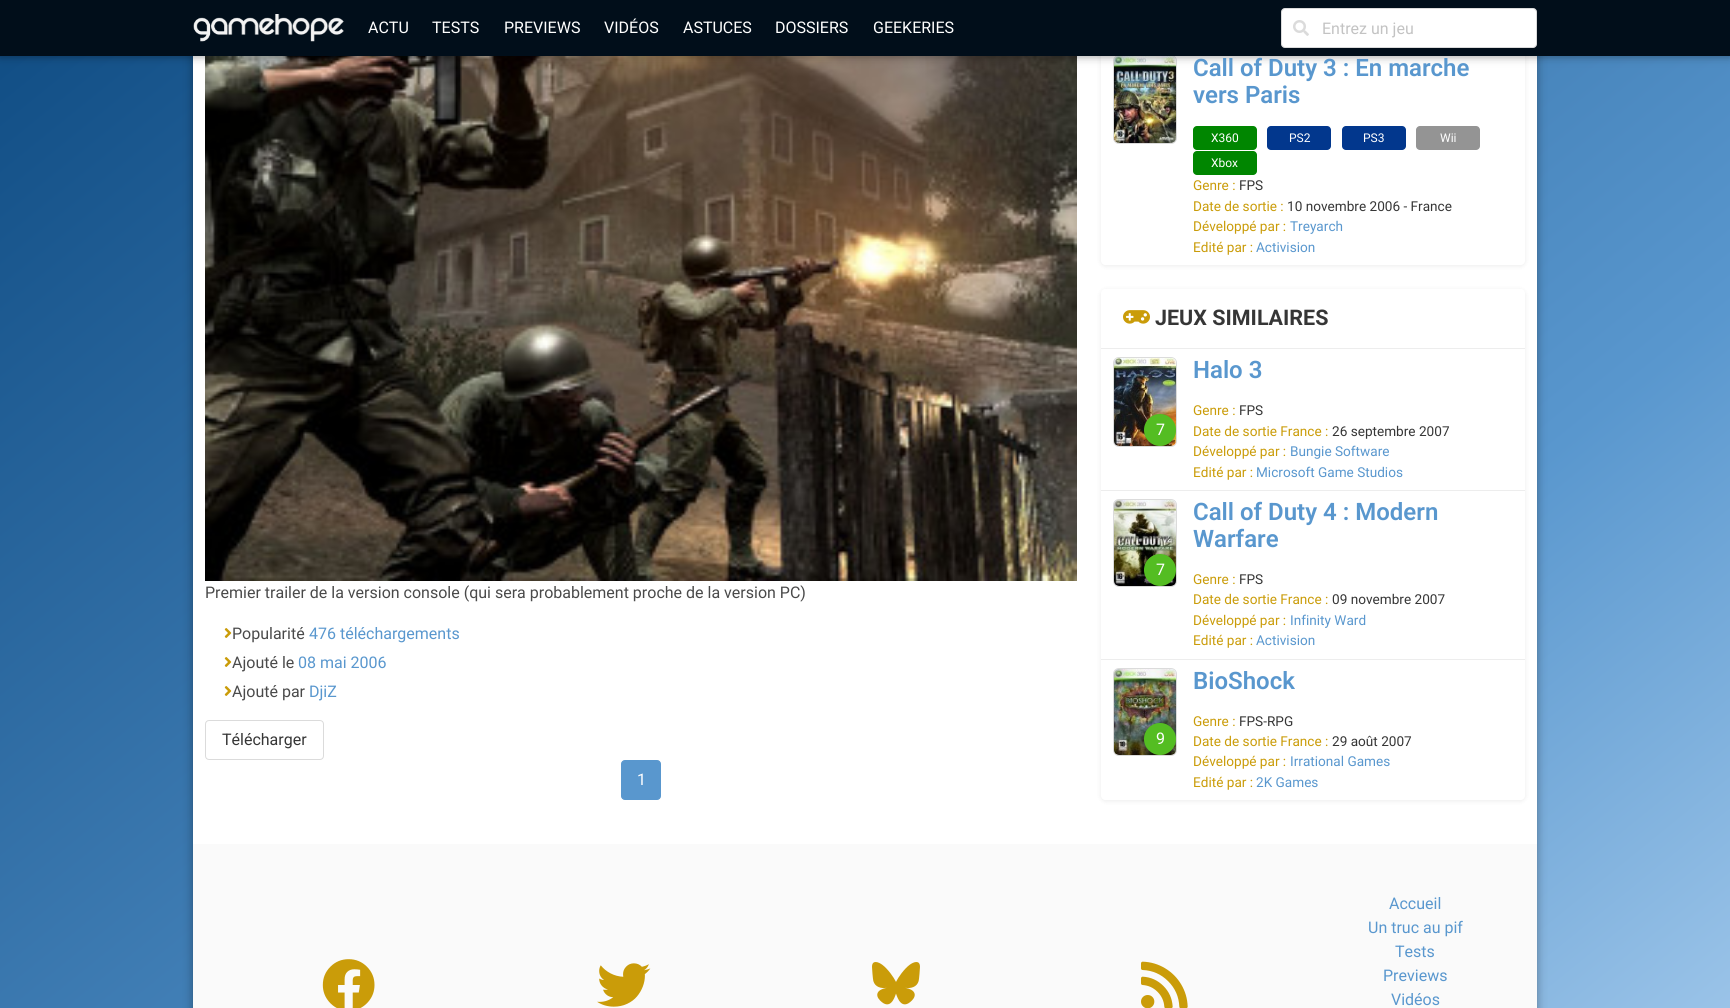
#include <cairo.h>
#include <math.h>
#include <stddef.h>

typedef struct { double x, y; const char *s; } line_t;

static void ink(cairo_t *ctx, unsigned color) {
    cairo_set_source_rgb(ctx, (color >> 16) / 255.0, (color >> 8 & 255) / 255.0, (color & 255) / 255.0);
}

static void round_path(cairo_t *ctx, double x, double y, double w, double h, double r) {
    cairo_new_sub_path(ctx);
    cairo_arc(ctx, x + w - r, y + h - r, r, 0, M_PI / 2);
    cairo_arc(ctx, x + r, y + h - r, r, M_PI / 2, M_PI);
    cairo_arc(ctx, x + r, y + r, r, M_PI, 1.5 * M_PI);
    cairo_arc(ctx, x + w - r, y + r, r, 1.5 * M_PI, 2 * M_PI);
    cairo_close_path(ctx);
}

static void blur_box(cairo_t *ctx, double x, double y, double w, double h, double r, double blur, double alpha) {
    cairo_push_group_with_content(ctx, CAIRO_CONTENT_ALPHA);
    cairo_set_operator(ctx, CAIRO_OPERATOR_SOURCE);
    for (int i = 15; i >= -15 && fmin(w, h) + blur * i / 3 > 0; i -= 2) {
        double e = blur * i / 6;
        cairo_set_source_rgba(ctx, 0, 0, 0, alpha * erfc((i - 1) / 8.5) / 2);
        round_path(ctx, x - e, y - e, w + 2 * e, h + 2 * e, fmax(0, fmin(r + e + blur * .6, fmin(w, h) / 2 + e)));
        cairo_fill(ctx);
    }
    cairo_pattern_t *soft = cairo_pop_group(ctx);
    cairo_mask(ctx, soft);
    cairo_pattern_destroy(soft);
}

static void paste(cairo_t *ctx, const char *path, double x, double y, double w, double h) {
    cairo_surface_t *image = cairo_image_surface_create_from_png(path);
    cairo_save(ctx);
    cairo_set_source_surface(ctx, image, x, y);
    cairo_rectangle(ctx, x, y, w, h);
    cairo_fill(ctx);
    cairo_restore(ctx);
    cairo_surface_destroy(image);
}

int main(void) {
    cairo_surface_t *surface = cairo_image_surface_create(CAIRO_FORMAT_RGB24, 1730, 1008);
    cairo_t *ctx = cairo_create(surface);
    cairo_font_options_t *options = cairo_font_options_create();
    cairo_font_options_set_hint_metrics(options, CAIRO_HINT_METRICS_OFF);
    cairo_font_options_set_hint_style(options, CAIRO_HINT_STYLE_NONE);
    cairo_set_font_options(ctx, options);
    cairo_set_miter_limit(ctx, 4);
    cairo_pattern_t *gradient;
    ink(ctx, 0xFFFFFF);
    cairo_paint(ctx);
    gradient = cairo_pattern_create_linear(276, -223, 1454, 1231);
    cairo_pattern_add_color_stop_rgba(gradient, 0, 0.059, 0.298, 0.514, 1);
    cairo_pattern_add_color_stop_rgba(gradient, 0.71, 0.349, 0.592, 0.808, 1);
    cairo_pattern_add_color_stop_rgba(gradient, 1, 0.604, 0.765, 0.91, 1);
    cairo_set_source(ctx, gradient);
    cairo_pattern_destroy(gradient);
    cairo_rectangle(ctx, 0, 56, 1730, 952);
    cairo_fill(ctx);
    ink(ctx, 0x000000);
    blur_box(ctx, 193, -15, 1344, 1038, 0, 5, 0.35);
    ink(ctx, 0xFFFFFF);
    cairo_rectangle(ctx, 193, 56, 1344, 788);
    cairo_fill(ctx);
    paste(ctx, "media/3.png", 205, 56, 872, 525);
    cairo_save(ctx);
    cairo_set_fill_rule(ctx, CAIRO_FILL_RULE_EVEN_ODD);
    cairo_new_path(ctx);
    cairo_move_to(ctx, 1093, 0);
    cairo_line_to(ctx, 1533, 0);
    cairo_line_to(ctx, 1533, 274);
    cairo_line_to(ctx, 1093, 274);
    cairo_close_path(ctx);
    cairo_move_to(ctx, 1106, -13);
    cairo_line_to(ctx, 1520, -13);
    cairo_curve_to(ctx, 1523, -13, 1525, -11, 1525, -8);
    cairo_line_to(ctx, 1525, 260);
    cairo_curve_to(ctx, 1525, 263, 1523, 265, 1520, 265);
    cairo_line_to(ctx, 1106, 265);
    cairo_curve_to(ctx, 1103, 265, 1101, 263, 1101, 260);
    cairo_line_to(ctx, 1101, -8);
    cairo_curve_to(ctx, 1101, -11, 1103, -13, 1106, -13);
    cairo_close_path(ctx);
    cairo_clip(ctx);
    ink(ctx, 0x000000);
    blur_box(ctx, 1100, -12, 426, 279, 6, 2, 0.06);
    cairo_restore(ctx);
    round_path(ctx, 1113.5, 55.5, 63, 88, 5.5);
    ink(ctx, 0xDBDBDB);
    cairo_set_line_width(ctx, 1);
    cairo_stroke(ctx);
    paste(ctx, "media/5.png", 1114, 56, 62, 87);
    ink(ctx, 0x000000);
    blur_box(ctx, 0, -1, 1730, 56, 0, 5, 0.5);
    ink(ctx, 0x010E1A);
    cairo_rectangle(ctx, 0, 0, 1730, 56);
    cairo_fill(ctx);
    paste(ctx, "media/1.png", 193, 14, 151, 28);
    cairo_select_font_face(ctx, "Roboto", CAIRO_FONT_SLANT_NORMAL, CAIRO_FONT_WEIGHT_NORMAL);
    cairo_set_font_size(ctx, 16);
    ink(ctx, 0xFFFFFF);
    {
        static const line_t items[] = {
            {368, 33, "ACTU"},
            {432, 33, "TESTS"},
            {504, 33, "PREVIEWS"},
            {604, 33, "VIDÉOS"},
            {683, 33, "ASTUCES"},
            {775, 33, "DOSSIERS"},
            {873, 33, "GEEKERIES"},
        };
        for (size_t i = 0; i < sizeof items / sizeof *items; i++) {
            cairo_move_to(ctx, items[i].x, items[i].y);
            cairo_show_text(ctx, items[i].s);
        }
    }
    round_path(ctx, 1281.5, 8.5, 255, 39, 3.5);
    cairo_fill_preserve(ctx);
    ink(ctx, 0xDBDBDB);
    cairo_stroke(ctx);
    paste(ctx, "media/2.png", 1293, 20, 16, 16);
    ink(ctx, 0xC3C3C3);
    cairo_move_to(ctx, 1322, 34);
    cairo_show_text(ctx, "Entrez un jeu");
    ink(ctx, 0x4A4A4A);
    cairo_move_to(ctx, 205, 598);
    cairo_show_text(ctx, "Premier trailer de la version console (qui sera probablement proche de la version PC)");
    paste(ctx, "media/4.png", 224, 628, 8, 10);
    cairo_move_to(ctx, 232, 639);
    cairo_show_text(ctx, "Popularité");
    ink(ctx, 0x5997CE);
    cairo_move_to(ctx, 309, 639);
    cairo_show_text(ctx, "476 téléchargements");
    paste(ctx, "media/4.png", 224, 657, 8, 10);
    ink(ctx, 0x4A4A4A);
    cairo_move_to(ctx, 232, 668);
    cairo_show_text(ctx, "Ajouté le");
    ink(ctx, 0x5997CE);
    cairo_move_to(ctx, 298, 668);
    cairo_show_text(ctx, "08 mai 2006");
    paste(ctx, "media/4.png", 224, 686, 8, 10);
    ink(ctx, 0x4A4A4A);
    cairo_move_to(ctx, 232, 697);
    cairo_show_text(ctx, "Ajouté par");
    ink(ctx, 0x5997CE);
    cairo_move_to(ctx, 309, 697);
    cairo_show_text(ctx, "DjiZ");
    round_path(ctx, 205.5, 720.5, 118, 39, 3.5);
    ink(ctx, 0xDBDBDB);
    cairo_stroke(ctx);
    ink(ctx, 0x363636);
    cairo_move_to(ctx, 222, 745);
    cairo_show_text(ctx, "Télécharger");
    ink(ctx, 0x5997CE);
    round_path(ctx, 621.5, 760.5, 39, 39, 3.5);
    cairo_fill_preserve(ctx);
    cairo_stroke(ctx);
    ink(ctx, 0xFFFFFF);
    cairo_move_to(ctx, 637, 785);
    cairo_show_text(ctx, "1");
    cairo_select_font_face(ctx, "Roboto SemiBold", CAIRO_FONT_SLANT_NORMAL, CAIRO_FONT_WEIGHT_NORMAL);
    cairo_set_font_size(ctx, 24);
    ink(ctx, 0x5997CE);
    cairo_move_to(ctx, 1193, 76);
    cairo_show_text(ctx, "Call of Duty 3 : En marche");
    cairo_move_to(ctx, 1193, 103);
    cairo_show_text(ctx, "vers Paris");
    ink(ctx, 0x008600);
    round_path(ctx, 1193, 126, 64, 24, 4);
    cairo_fill(ctx);
    cairo_select_font_face(ctx, "Roboto", CAIRO_FONT_SLANT_NORMAL, CAIRO_FONT_WEIGHT_NORMAL);
    cairo_set_font_size(ctx, 12);
    ink(ctx, 0xFFFFFF);
    cairo_move_to(ctx, 1211, 142);
    cairo_show_text(ctx, "X360");
    ink(ctx, 0x02378D);
    round_path(ctx, 1267, 126, 64, 24, 4);
    cairo_fill(ctx);
    ink(ctx, 0xFFFFFF);
    cairo_move_to(ctx, 1289, 142);
    cairo_show_text(ctx, "PS2");
    ink(ctx, 0x02378D);
    round_path(ctx, 1342, 126, 64, 24, 4);
    cairo_fill(ctx);
    ink(ctx, 0xFFFFFF);
    cairo_move_to(ctx, 1363, 142);
    cairo_show_text(ctx, "PS3");
    ink(ctx, 0x949494);
    round_path(ctx, 1416, 126, 64, 24, 4);
    cairo_fill(ctx);
    ink(ctx, 0xFFFFFF);
    cairo_move_to(ctx, 1440, 142);
    cairo_show_text(ctx, "Wii");
    ink(ctx, 0x008600);
    round_path(ctx, 1193, 151, 64, 24, 4);
    cairo_fill(ctx);
    ink(ctx, 0xFFFFFF);
    cairo_move_to(ctx, 1211, 167);
    cairo_show_text(ctx, "Xbox");
    cairo_set_font_size(ctx, 13.6);
    ink(ctx, 0xCA9C09);
    cairo_move_to(ctx, 1193, 190);
    cairo_show_text(ctx, "Genre :");
    ink(ctx, 0x363636);
    cairo_move_to(ctx, 1239, 190);
    cairo_show_text(ctx, "FPS");
    ink(ctx, 0xCA9C09);
    cairo_move_to(ctx, 1193, 211);
    cairo_show_text(ctx, "Date de sortie :");
    ink(ctx, 0x363636);
    cairo_move_to(ctx, 1287, 211);
    cairo_show_text(ctx, "10 novembre 2006 - France");
    ink(ctx, 0xCA9C09);
    cairo_move_to(ctx, 1193, 231);
    cairo_show_text(ctx, "Développé par :");
    ink(ctx, 0x5997CE);
    cairo_move_to(ctx, 1290, 231);
    cairo_show_text(ctx, "Treyarch");
    ink(ctx, 0xCA9C09);
    cairo_move_to(ctx, 1193, 252);
    cairo_show_text(ctx, "Edité par :");
    ink(ctx, 0x5997CE);
    cairo_move_to(ctx, 1256, 252);
    cairo_show_text(ctx, "Activision");
    cairo_save(ctx);
    cairo_set_fill_rule(ctx, CAIRO_FILL_RULE_EVEN_ODD);
    cairo_new_path(ctx);
    cairo_move_to(ctx, 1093, 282);
    cairo_line_to(ctx, 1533, 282);
    cairo_line_to(ctx, 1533, 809);
    cairo_line_to(ctx, 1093, 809);
    cairo_close_path(ctx);
    cairo_move_to(ctx, 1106, 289);
    cairo_line_to(ctx, 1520, 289);
    cairo_curve_to(ctx, 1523, 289, 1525, 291, 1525, 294);
    cairo_line_to(ctx, 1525, 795);
    cairo_curve_to(ctx, 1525, 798, 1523, 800, 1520, 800);
    cairo_line_to(ctx, 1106, 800);
    cairo_curve_to(ctx, 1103, 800, 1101, 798, 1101, 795);
    cairo_line_to(ctx, 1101, 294);
    cairo_curve_to(ctx, 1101, 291, 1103, 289, 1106, 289);
    cairo_close_path(ctx);
    cairo_clip(ctx);
    ink(ctx, 0x000000);
    blur_box(ctx, 1100, 289, 426, 513, 6, 2, 0.06);
    cairo_restore(ctx);
    ink(ctx, 0xEDEDED);
    cairo_rectangle(ctx, 1101, 348, 424, 1);
    cairo_fill(ctx);
    paste(ctx, "media/6.png", 1123, 310, 27, 14);
    cairo_select_font_face(ctx, "Roboto", CAIRO_FONT_SLANT_NORMAL, CAIRO_FONT_WEIGHT_BOLD);
    cairo_set_font_size(ctx, 21.5);
    ink(ctx, 0x363636);
    cairo_move_to(ctx, 1155, 325);
    cairo_show_text(ctx, "JEUX SIMILAIRES");
    ink(ctx, 0xEDEDED);
    cairo_rectangle(ctx, 1101, 490, 424, 1);
    cairo_fill(ctx);
    round_path(ctx, 1113.5, 357.5, 63, 89, 5.5);
    ink(ctx, 0xDBDBDB);
    cairo_stroke(ctx);
    paste(ctx, "media/7.png", 1114, 358, 62, 88);
    cairo_save(ctx);
    round_path(ctx, 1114, 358, 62, 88, 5);
    cairo_clip(ctx);
    ink(ctx, 0x000000);
    blur_box(ctx, 1144, 414, 32, 32, 16, 3.5, 0.4);
    cairo_restore(ctx);
    ink(ctx, 0x54BD22);
    cairo_arc(ctx, 1160, 430, 16, 0, 2 * M_PI);
    cairo_fill(ctx);
    cairo_select_font_face(ctx, "Roboto", CAIRO_FONT_SLANT_NORMAL, CAIRO_FONT_WEIGHT_NORMAL);
    cairo_set_font_size(ctx, 16);
    ink(ctx, 0xFFFFFF);
    cairo_move_to(ctx, 1156, 435);
    cairo_show_text(ctx, "7");
    cairo_select_font_face(ctx, "Roboto SemiBold", CAIRO_FONT_SLANT_NORMAL, CAIRO_FONT_WEIGHT_NORMAL);
    cairo_set_font_size(ctx, 24);
    ink(ctx, 0x5997CE);
    cairo_move_to(ctx, 1193, 378);
    cairo_show_text(ctx, "Halo 3");
    cairo_select_font_face(ctx, "Roboto", CAIRO_FONT_SLANT_NORMAL, CAIRO_FONT_WEIGHT_NORMAL);
    cairo_set_font_size(ctx, 13.6);
    ink(ctx, 0xCA9C09);
    cairo_move_to(ctx, 1193, 415);
    cairo_show_text(ctx, "Genre :");
    ink(ctx, 0x363636);
    cairo_move_to(ctx, 1239, 415);
    cairo_show_text(ctx, "FPS");
    ink(ctx, 0xCA9C09);
    cairo_move_to(ctx, 1193, 436);
    cairo_show_text(ctx, "Date de sortie France :");
    ink(ctx, 0x363636);
    cairo_move_to(ctx, 1332, 436);
    cairo_show_text(ctx, "26 septembre 2007");
    ink(ctx, 0xCA9C09);
    cairo_move_to(ctx, 1193, 456);
    cairo_show_text(ctx, "Développé par :");
    ink(ctx, 0x5997CE);
    cairo_move_to(ctx, 1290, 456);
    cairo_show_text(ctx, "Bungie Software");
    ink(ctx, 0xCA9C09);
    cairo_move_to(ctx, 1193, 477);
    cairo_show_text(ctx, "Edité par :");
    ink(ctx, 0x5997CE);
    cairo_move_to(ctx, 1256, 477);
    cairo_show_text(ctx, "Microsoft Game Studios");
    ink(ctx, 0xEDEDED);
    cairo_rectangle(ctx, 1101, 659, 424, 1);
    cairo_fill(ctx);
    round_path(ctx, 1113.5, 499.5, 63, 87, 5.5);
    ink(ctx, 0xDBDBDB);
    cairo_stroke(ctx);
    paste(ctx, "media/8.png", 1114, 500, 62, 86);
    cairo_save(ctx);
    round_path(ctx, 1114, 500, 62, 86, 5);
    cairo_clip(ctx);
    ink(ctx, 0x000000);
    blur_box(ctx, 1144, 554, 32, 32, 16, 3.5, 0.4);
    cairo_restore(ctx);
    ink(ctx, 0x54BD22);
    cairo_arc(ctx, 1160, 570, 16, 0, 2 * M_PI);
    cairo_fill(ctx);
    cairo_set_font_size(ctx, 16);
    ink(ctx, 0xFFFFFF);
    cairo_move_to(ctx, 1156, 575);
    cairo_show_text(ctx, "7");
    cairo_select_font_face(ctx, "Roboto SemiBold", CAIRO_FONT_SLANT_NORMAL, CAIRO_FONT_WEIGHT_NORMAL);
    cairo_set_font_size(ctx, 24);
    ink(ctx, 0x5997CE);
    cairo_move_to(ctx, 1193, 520);
    cairo_show_text(ctx, "Call of Duty 4 : Modern");
    cairo_move_to(ctx, 1193, 547);
    cairo_show_text(ctx, "Warfare");
    cairo_select_font_face(ctx, "Roboto", CAIRO_FONT_SLANT_NORMAL, CAIRO_FONT_WEIGHT_NORMAL);
    cairo_set_font_size(ctx, 13.6);
    ink(ctx, 0xCA9C09);
    cairo_move_to(ctx, 1193, 584);
    cairo_show_text(ctx, "Genre :");
    ink(ctx, 0x363636);
    cairo_move_to(ctx, 1239, 584);
    cairo_show_text(ctx, "FPS");
    ink(ctx, 0xCA9C09);
    cairo_move_to(ctx, 1193, 604);
    cairo_show_text(ctx, "Date de sortie France :");
    ink(ctx, 0x363636);
    cairo_move_to(ctx, 1332, 604);
    cairo_show_text(ctx, "09 novembre 2007");
    ink(ctx, 0xCA9C09);
    cairo_move_to(ctx, 1193, 625);
    cairo_show_text(ctx, "Développé par :");
    ink(ctx, 0x5997CE);
    cairo_move_to(ctx, 1290, 625);
    cairo_show_text(ctx, "Infinity Ward");
    ink(ctx, 0xCA9C09);
    cairo_move_to(ctx, 1193, 645);
    cairo_show_text(ctx, "Edité par :");
    ink(ctx, 0x5997CE);
    cairo_move_to(ctx, 1256, 645);
    cairo_show_text(ctx, "Activision");
    round_path(ctx, 1113.5, 668.5, 63, 87, 5.5);
    ink(ctx, 0xDBDBDB);
    cairo_stroke(ctx);
    paste(ctx, "media/9.png", 1114, 669, 62, 86);
    cairo_save(ctx);
    round_path(ctx, 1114, 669, 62, 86, 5);
    cairo_clip(ctx);
    ink(ctx, 0x000000);
    blur_box(ctx, 1144, 723, 32, 32, 16, 3.5, 0.4);
    cairo_restore(ctx);
    ink(ctx, 0x54BD22);
    cairo_arc(ctx, 1160, 739, 16, 0, 2 * M_PI);
    cairo_fill(ctx);
    cairo_set_font_size(ctx, 16);
    ink(ctx, 0xFFFFFF);
    cairo_move_to(ctx, 1156, 744);
    cairo_show_text(ctx, "9");
    cairo_select_font_face(ctx, "Roboto SemiBold", CAIRO_FONT_SLANT_NORMAL, CAIRO_FONT_WEIGHT_NORMAL);
    cairo_set_font_size(ctx, 24);
    ink(ctx, 0x5997CE);
    cairo_move_to(ctx, 1193, 689);
    cairo_show_text(ctx, "BioShock");
    cairo_select_font_face(ctx, "Roboto", CAIRO_FONT_SLANT_NORMAL, CAIRO_FONT_WEIGHT_NORMAL);
    cairo_set_font_size(ctx, 13.6);
    ink(ctx, 0xCA9C09);
    cairo_move_to(ctx, 1193, 726);
    cairo_show_text(ctx, "Genre :");
    ink(ctx, 0x363636);
    cairo_move_to(ctx, 1239, 726);
    cairo_show_text(ctx, "FPS-RPG");
    ink(ctx, 0xCA9C09);
    cairo_move_to(ctx, 1193, 746);
    cairo_show_text(ctx, "Date de sortie France :");
    ink(ctx, 0x363636);
    cairo_move_to(ctx, 1332, 746);
    cairo_show_text(ctx, "29 août 2007");
    ink(ctx, 0xCA9C09);
    cairo_move_to(ctx, 1193, 766);
    cairo_show_text(ctx, "Développé par :");
    ink(ctx, 0x5997CE);
    cairo_move_to(ctx, 1290, 766);
    cairo_show_text(ctx, "Irrational Games");
    ink(ctx, 0xCA9C09);
    cairo_move_to(ctx, 1193, 787);
    cairo_show_text(ctx, "Edité par :");
    ink(ctx, 0x5997CE);
    cairo_move_to(ctx, 1256, 787);
    cairo_show_text(ctx, "2K Games");
    ink(ctx, 0xFAFAFA);
    cairo_rectangle(ctx, 193, 844, 1344, 164);
    cairo_fill(ctx);
    paste(ctx, "media/10.png", 322, 959, 53, 49);
    paste(ctx, "media/11.png", 597, 963, 54, 44);
    paste(ctx, "media/12.png", 872, 962, 48, 43);
    paste(ctx, "media/13.png", 1141, 961, 47, 47);
    cairo_set_font_size(ctx, 16);
    ink(ctx, 0x5997CE);
    {
        static const line_t items[] = {
            {1389, 909, "Accueil"},
            {1368, 933, "Un truc au pif"},
            {1395, 957, "Tests"},
            {1383, 981, "Previews"},
            {1391, 1005, "Vidéos"},
        };
        for (size_t i = 0; i < sizeof items / sizeof *items; i++) {
            cairo_move_to(ctx, items[i].x, items[i].y);
            cairo_show_text(ctx, items[i].s);
        }
    }
    cairo_surface_write_to_png(surface, "image.png");
    cairo_font_options_destroy(options);
    cairo_destroy(ctx);
    cairo_surface_destroy(surface);
    return 0;
}
